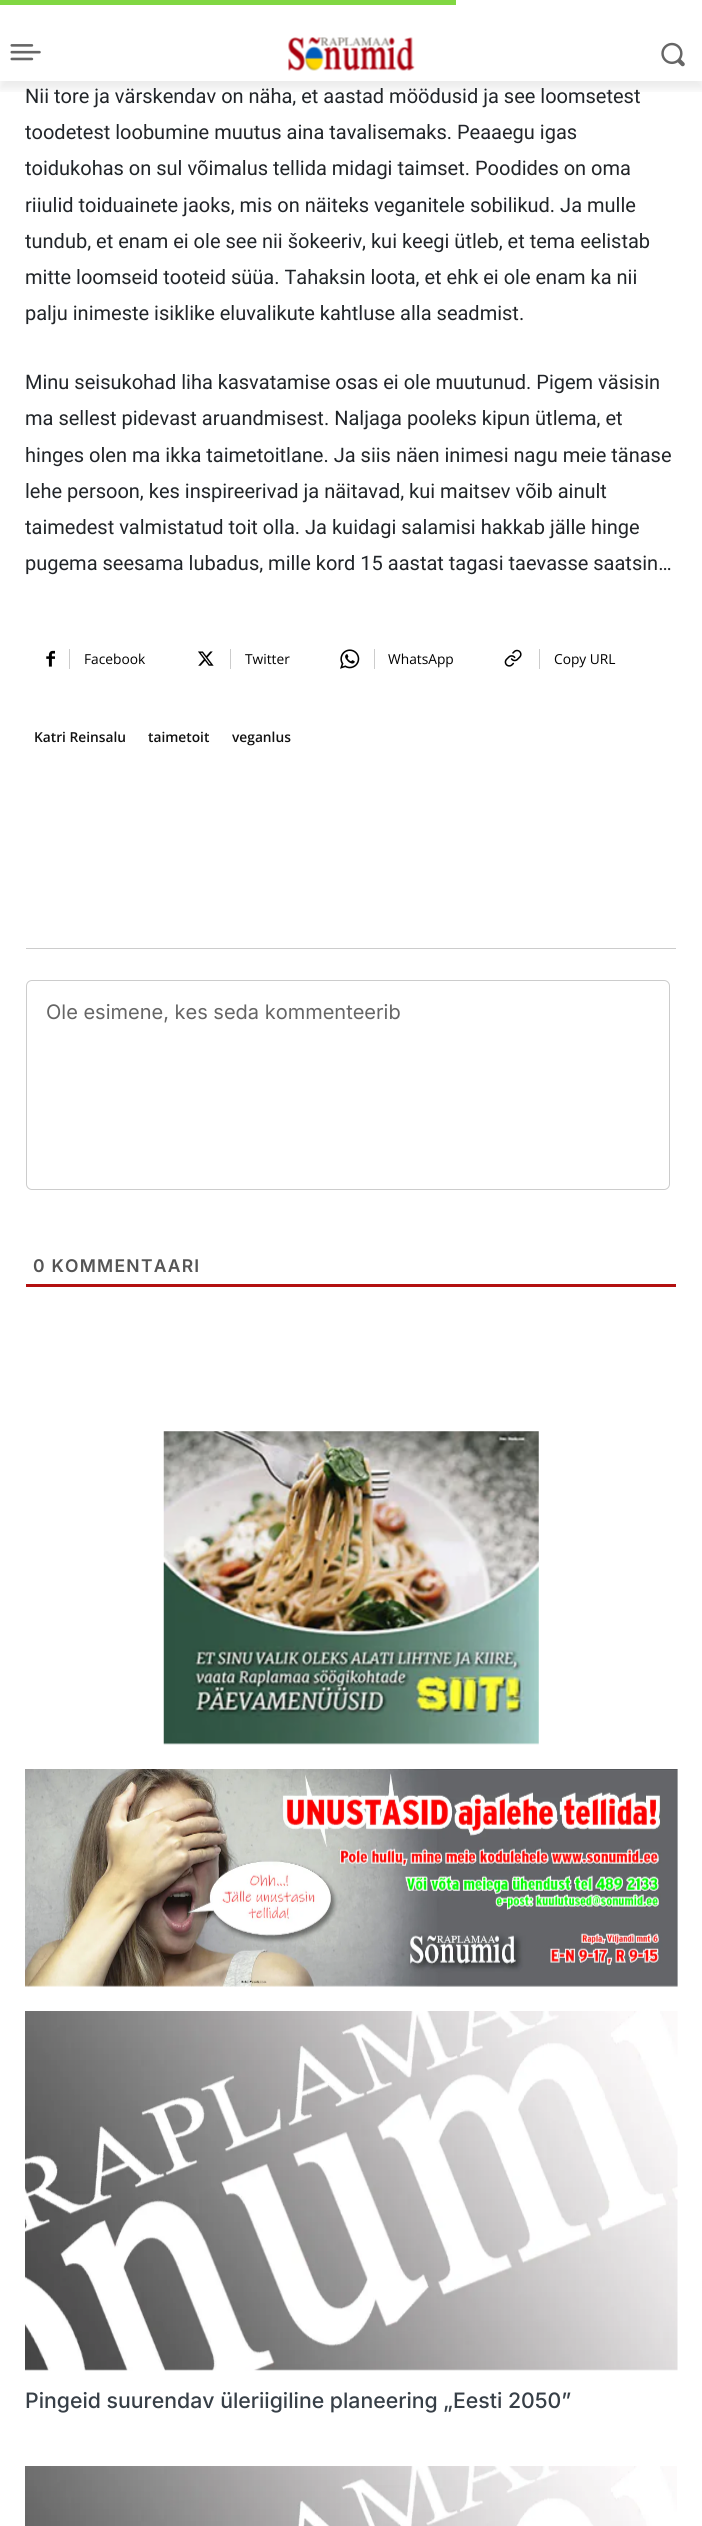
#include <cairo.h>
#include <math.h>
#include <stddef.h>

typedef struct { double x, y; const char *s; } line_t;

static void ink(cairo_t *ctx, unsigned color) {
    cairo_set_source_rgb(ctx, (color >> 16) / 255.0, (color >> 8 & 255) / 255.0, (color & 255) / 255.0);
}

static void write_spaced(cairo_t *ctx, double x, double y, const char *s, double letter, double word) {
    cairo_move_to(ctx, x, y);
    while (*s) {
        char ch[5] = {0};
        int n = 0;
        do ch[n++] = *s++; while ((*s & 0xC0) == 0x80);
        cairo_show_text(ctx, ch);
        cairo_rel_move_to(ctx, letter + word * (*ch == ' '), 0);
    }
}

static void round_path(cairo_t *ctx, double x, double y, double w, double h, double r) {
    cairo_new_sub_path(ctx);
    cairo_arc(ctx, x + w - r, y + h - r, r, 0, M_PI / 2);
    cairo_arc(ctx, x + r, y + h - r, r, M_PI / 2, M_PI);
    cairo_arc(ctx, x + r, y + r, r, M_PI, 1.5 * M_PI);
    cairo_arc(ctx, x + w - r, y + r, r, 1.5 * M_PI, 2 * M_PI);
    cairo_close_path(ctx);
}

static void blur_box(cairo_t *ctx, double x, double y, double w, double h, double r, double blur, double alpha) {
    cairo_push_group_with_content(ctx, CAIRO_CONTENT_ALPHA);
    cairo_set_operator(ctx, CAIRO_OPERATOR_SOURCE);
    for (int i = 15; i >= -15 && fmin(w, h) + blur * i / 3 > 0; i -= 2) {
        double e = blur * i / 6;
        cairo_set_source_rgba(ctx, 0, 0, 0, alpha * erfc((i - 1) / 8.5) / 2);
        round_path(ctx, x - e, y - e, w + 2 * e, h + 2 * e, fmax(0, fmin(r + e + blur * .6, fmin(w, h) / 2 + e)));
        cairo_fill(ctx);
    }
    cairo_pattern_t *soft = cairo_pop_group(ctx);
    cairo_mask(ctx, soft);
    cairo_pattern_destroy(soft);
}

static void paste(cairo_t *ctx, const char *path, double x, double y, double w, double h) {
    cairo_surface_t *image = cairo_image_surface_create_from_png(path);
    cairo_save(ctx);
    cairo_set_source_surface(ctx, image, x, y);
    cairo_rectangle(ctx, x, y, w, h);
    cairo_fill(ctx);
    cairo_restore(ctx);
    cairo_surface_destroy(image);
}

int main(void) {
    cairo_surface_t *surface = cairo_image_surface_create(CAIRO_FORMAT_RGB24, 702, 2526);
    cairo_t *ctx = cairo_create(surface);
    cairo_font_options_t *options = cairo_font_options_create();
    cairo_font_options_set_hint_metrics(options, CAIRO_HINT_METRICS_OFF);
    cairo_font_options_set_hint_style(options, CAIRO_HINT_STYLE_NONE);
    cairo_set_font_options(ctx, options);
    cairo_set_miter_limit(ctx, 4);
    ink(ctx, 0xFFFFFF);
    cairo_paint(ctx);
    paste(ctx, "media/1.png", 10, 44, 31, 17);
    paste(ctx, "media/2.png", 288, 37, 127, 34);
    paste(ctx, "media/3.png", 661, 42, 24, 25);
    cairo_save(ctx);
    cairo_rectangle(ctx, 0, 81, 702, 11);
    cairo_clip(ctx);
    ink(ctx, 0x000000);
    blur_box(ctx, 0, 8, 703, 81, 0, 5, 0.08);
    cairo_restore(ctx);
    ink(ctx, 0x81D742);
    cairo_rectangle(ctx, 0, 0, 456, 5);
    cairo_fill(ctx);
    cairo_select_font_face(ctx, "Roboto", CAIRO_FONT_SLANT_NORMAL, CAIRO_FONT_WEIGHT_NORMAL);
    cairo_set_font_size(ctx, 20);
    ink(ctx, 0x212529);
    {
        static const line_t items[] = {
            {25, 103, "Nii tore ja värskendav on näha, et aastad möödusid ja see loomsetest"},
            {25, 139, "toodetest loobumine muutus aina tavalisemaks. Peaaegu igas"},
            {25, 175, "toidukohas on sul võimalus tellida midagi taimset. Poodides on oma"},
            {25, 212, "riiulid toiduainete jaoks, mis on näiteks veganitele sobilikud. Ja mulle"},
            {25, 248, "tundub, et enam ei ole see nii šokeeriv, kui keegi ütleb, et tema eelistab"},
            {25, 284, "mitte loomseid tooteid süüa. Tahaksin loota, et ehk ei ole enam ka nii"},
            {25, 320, "palju inimeste isiklike eluvalikute kahtluse alla seadmist."},
            {25, 389, "Minu seisukohad liha kasvatamise osas ei ole muutunud. Pigem väsisin"},
            {25, 425, "ma sellest pidevast aruandmisest. Naljaga pooleks kipun ütlema, et"},
            {25, 462, "hinges olen ma ikka taimetoitlane. Ja siis näen inimesi nagu meie tänase"},
            {25, 498, "lehe persoon, kes inspireerivad ja näitavad, kui maitsev võib ainult"},
            {25, 534, "taimedest valmistatud toit olla. Ja kuidagi salamisi hakkab jälle hinge"},
            {25, 570, "pugema seesama lubadus, mille kord 15 aastat tagasi taevasse saatsin…"},
        };
        for (size_t i = 0; i < sizeof items / sizeof *items; i++) {
            cairo_move_to(ctx, items[i].x, items[i].y);
            cairo_show_text(ctx, items[i].s);
        }
    }
    paste(ctx, "media/4.png", 46, 650, 9, 17);
    ink(ctx, 0xCCCCCC);
    cairo_rectangle(ctx, 69, 649, 1, 20);
    cairo_fill(ctx);
    cairo_select_font_face(ctx, "Open Sans", CAIRO_FONT_SLANT_NORMAL, CAIRO_FONT_WEIGHT_NORMAL);
    cairo_set_font_size(ctx, 13.75);
    ink(ctx, 0x000000);
    cairo_move_to(ctx, 84, 664);
    cairo_show_text(ctx, "Facebook");
    paste(ctx, "media/5.png", 198, 651, 16, 15);
    ink(ctx, 0xCCCCCC);
    cairo_rectangle(ctx, 230, 649, 1, 20);
    cairo_fill(ctx);
    ink(ctx, 0x000000);
    cairo_move_to(ctx, 245, 664);
    cairo_show_text(ctx, "Twitter");
    paste(ctx, "media/6.png", 340, 649, 20, 20);
    ink(ctx, 0xCCCCCC);
    cairo_rectangle(ctx, 374, 649, 1, 20);
    cairo_fill(ctx);
    ink(ctx, 0x000000);
    cairo_move_to(ctx, 388, 664);
    cairo_show_text(ctx, "WhatsApp");
    paste(ctx, "media/7.png", 504, 649, 18, 18);
    ink(ctx, 0xCCCCCC);
    cairo_rectangle(ctx, 539, 649, 1, 20);
    cairo_fill(ctx);
    ink(ctx, 0x000000);
    cairo_move_to(ctx, 554, 664);
    cairo_show_text(ctx, "Copy URL");
    cairo_select_font_face(ctx, "Open Sans SemiBold", CAIRO_FONT_SLANT_NORMAL, CAIRO_FONT_WEIGHT_NORMAL);
    ink(ctx, 0x111111);
    {
        static const line_t items[] = {
            {34, 742, "Katri Reinsalu"},
            {148, 742, "taimetoit"},
            {232, 742, "veganlus"},
        };
        for (size_t i = 0; i < sizeof items / sizeof *items; i++) {
            cairo_move_to(ctx, items[i].x, items[i].y);
            cairo_show_text(ctx, items[i].s);
        }
    }
    ink(ctx, 0xCCCCCC);
    cairo_rectangle(ctx, 26, 948, 650, 1);
    cairo_fill(ctx);
    round_path(ctx, 26.5, 980.5, 643, 209, 5.5);
    cairo_set_line_width(ctx, 1);
    cairo_stroke(ctx);
    cairo_select_font_face(ctx, "Inter", CAIRO_FONT_SLANT_NORMAL, CAIRO_FONT_WEIGHT_NORMAL);
    cairo_set_font_size(ctx, 20);
    ink(ctx, 0x666666);
    cairo_move_to(ctx, 46, 1019);
    cairo_show_text(ctx, "Ole esimene, kes seda kommenteerib");
    ink(ctx, 0xB31010);
    cairo_rectangle(ctx, 26, 1284, 650, 3);
    cairo_fill(ctx);
    cairo_select_font_face(ctx, "Inter SemiBold", CAIRO_FONT_SLANT_NORMAL, CAIRO_FONT_WEIGHT_NORMAL);
    cairo_set_font_size(ctx, 17.5);
    ink(ctx, 0x555555);
    write_spaced(ctx, 33, 1272, "0 KOMMENTAARI", 1.25, 0);
    paste(ctx, "media/8.png", 163, 1431, 376, 314);
    paste(ctx, "media/9.png", 25, 1769, 653, 218);
    paste(ctx, "media/10.png", 25, 2011, 653, 360);
    cairo_select_font_face(ctx, "Inter Medium", CAIRO_FONT_SLANT_NORMAL, CAIRO_FONT_WEIGHT_NORMAL);
    cairo_set_font_size(ctx, 21.25);
    ink(ctx, 0x373F47);
    cairo_move_to(ctx, 25, 2408);
    cairo_show_text(ctx, "Pingeid suurendav üleriigiline planeering „Eesti 2050”");
    paste(ctx, "media/11.png", 25, 2466, 652, 60);
    cairo_surface_write_to_png(surface, "image.png");
    cairo_font_options_destroy(options);
    cairo_destroy(ctx);
    cairo_surface_destroy(surface);
    return 0;
}
